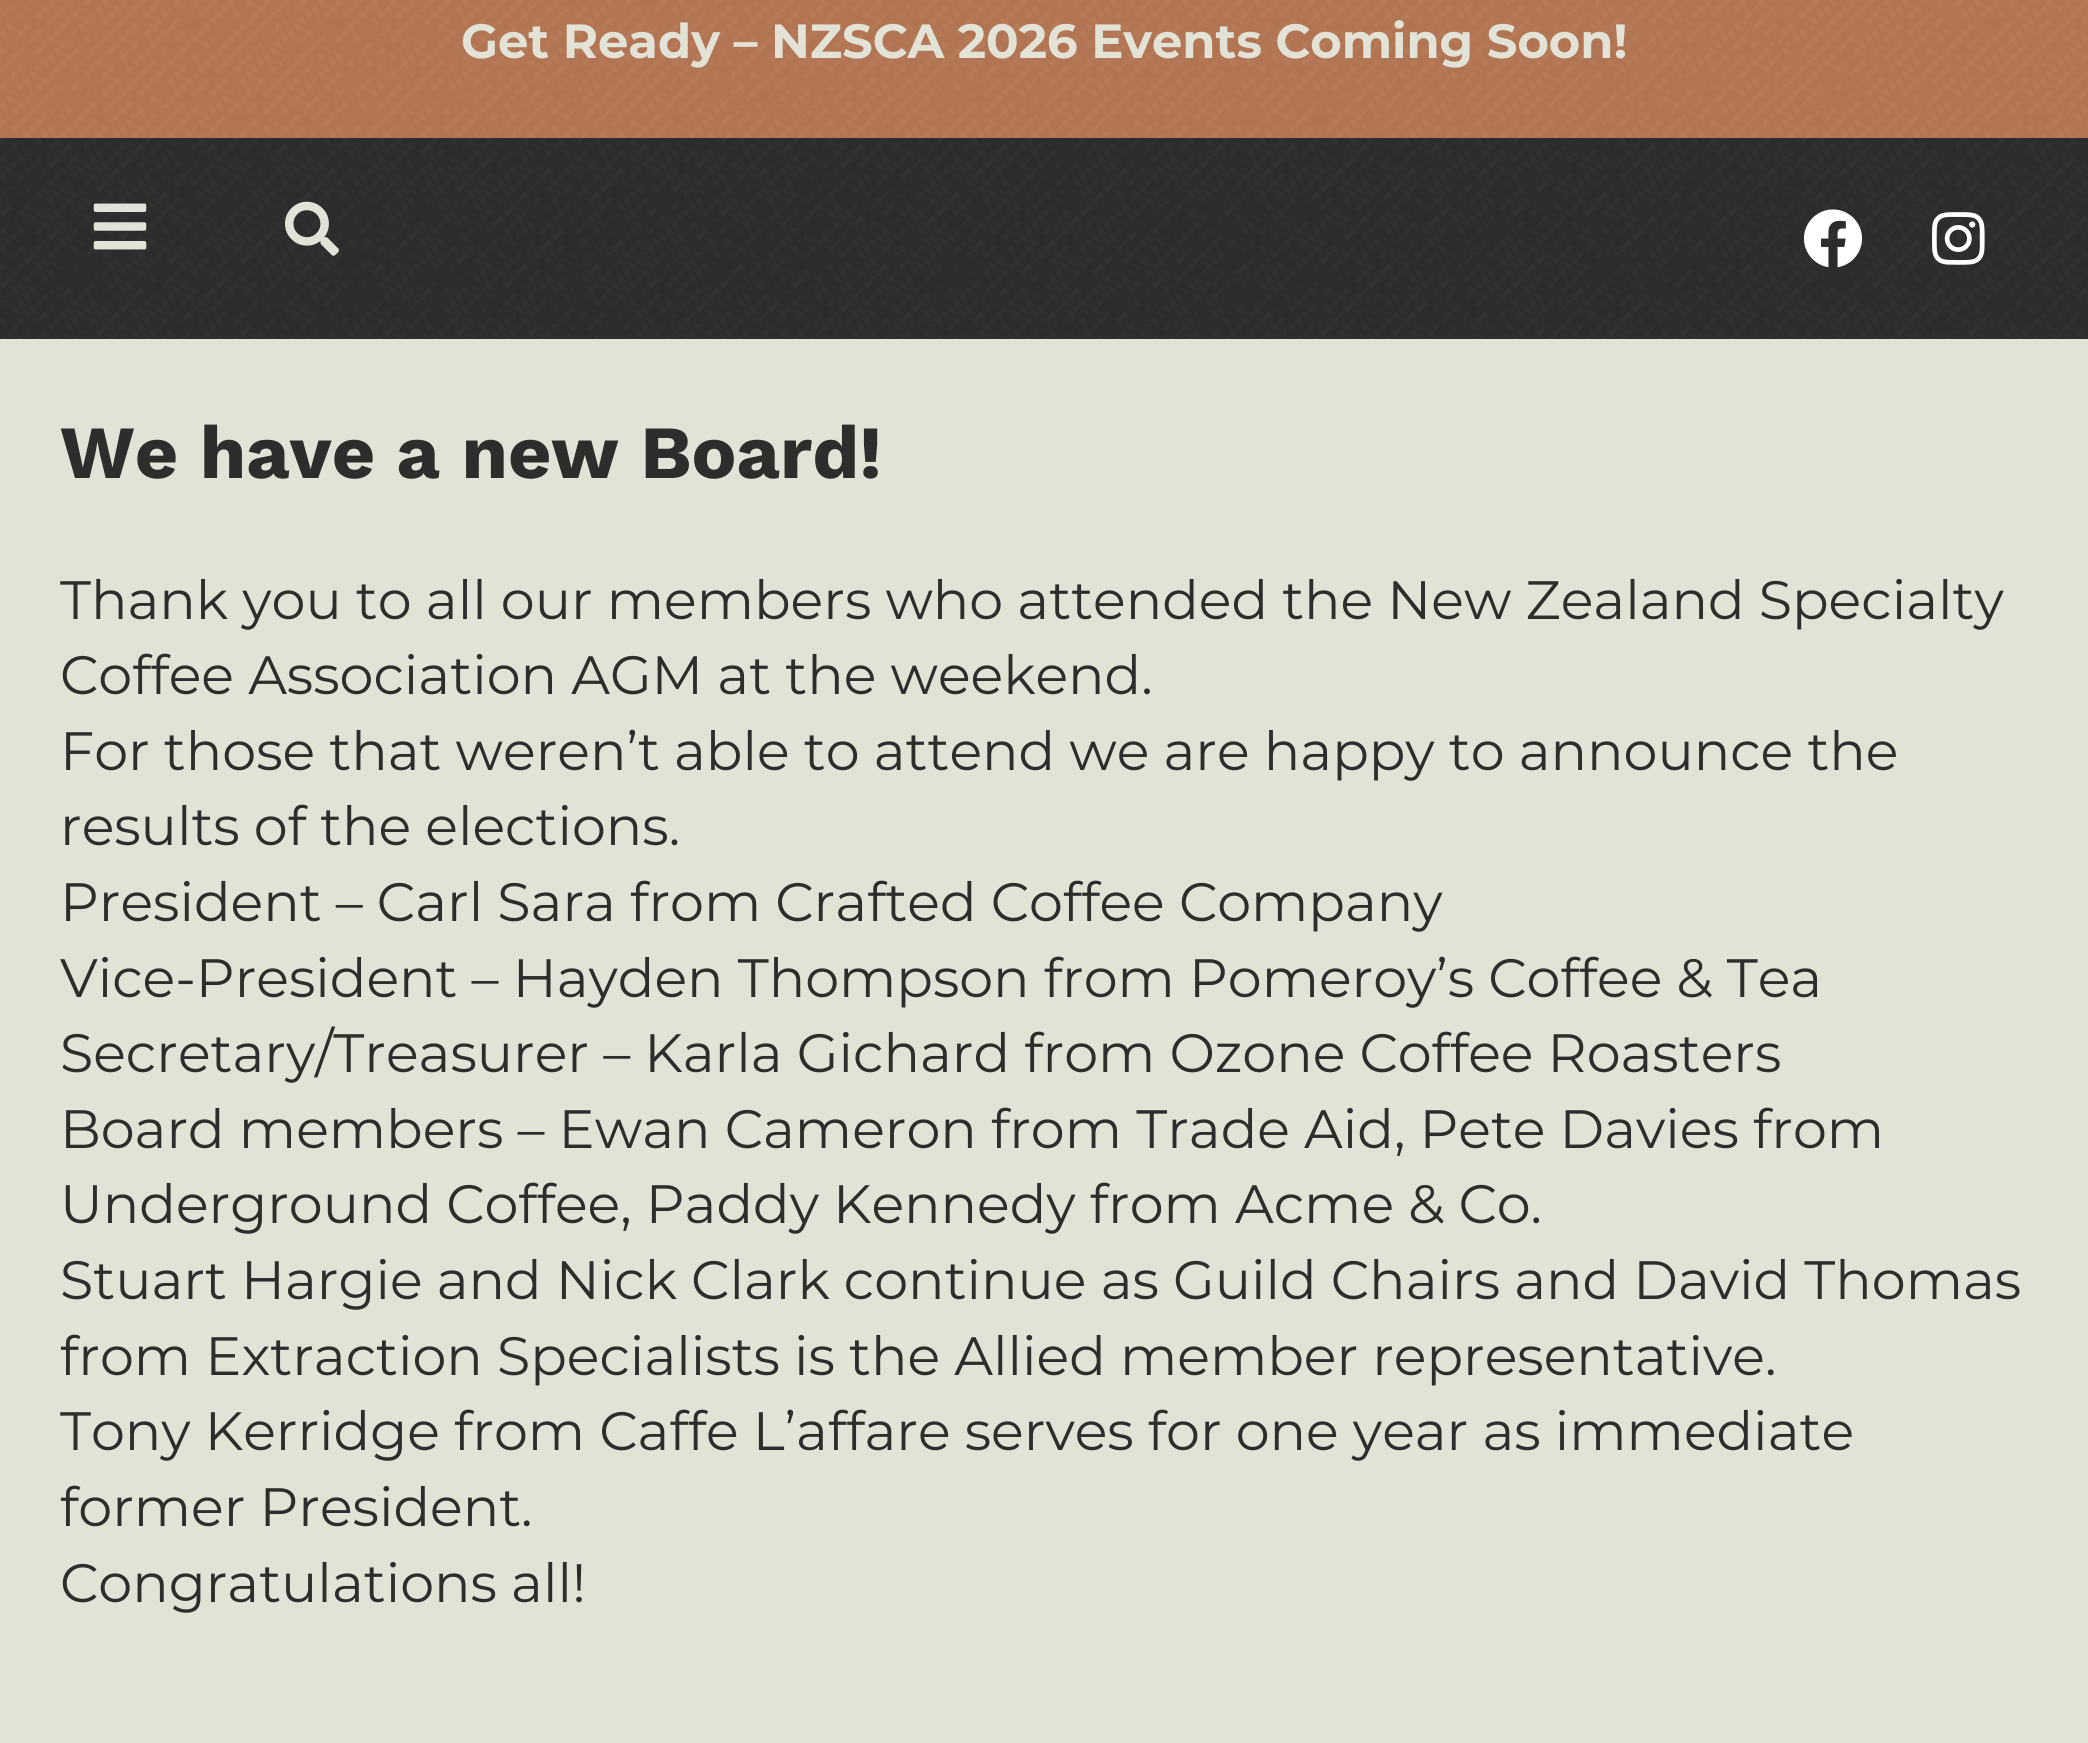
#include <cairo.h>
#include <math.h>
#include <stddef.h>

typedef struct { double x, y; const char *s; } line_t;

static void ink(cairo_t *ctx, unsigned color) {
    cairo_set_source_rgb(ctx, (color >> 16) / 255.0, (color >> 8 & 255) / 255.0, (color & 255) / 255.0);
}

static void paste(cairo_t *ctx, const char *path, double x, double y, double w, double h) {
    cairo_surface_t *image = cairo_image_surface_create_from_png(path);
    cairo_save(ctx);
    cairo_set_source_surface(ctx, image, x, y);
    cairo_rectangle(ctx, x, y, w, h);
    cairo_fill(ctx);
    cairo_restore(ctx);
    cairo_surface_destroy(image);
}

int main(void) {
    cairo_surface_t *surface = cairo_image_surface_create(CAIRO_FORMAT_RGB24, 2088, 1743);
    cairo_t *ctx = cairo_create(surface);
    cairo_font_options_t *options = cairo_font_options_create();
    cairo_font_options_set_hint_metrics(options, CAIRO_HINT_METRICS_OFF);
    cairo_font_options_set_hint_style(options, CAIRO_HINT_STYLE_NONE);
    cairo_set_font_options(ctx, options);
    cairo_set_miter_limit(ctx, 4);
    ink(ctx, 0xE2E2D6);
    cairo_paint(ctx);
    paste(ctx, "media/1.png", 0, 0, 2088, 138);
    cairo_select_font_face(ctx, "Montserrat", CAIRO_FONT_SLANT_NORMAL, CAIRO_FONT_WEIGHT_BOLD);
    cairo_set_font_size(ctx, 48);
    ink(ctx, 0xE2E2D6);
    cairo_move_to(ctx, 461, 58);
    cairo_show_text(ctx, "Get Ready – NZSCA 2026 Events Coming Soon!");
    paste(ctx, "media/2.png", 0, 138, 2088, 201);
    paste(ctx, "media/3.png", 93, 203, 54, 47);
    paste(ctx, "media/4.png", 285, 201, 54, 55);
    paste(ctx, "media/5.png", 1803, 209, 60, 59);
    paste(ctx, "media/6.png", 1932, 212, 53, 53);
    cairo_select_font_face(ctx, "Work Sans", CAIRO_FONT_SLANT_NORMAL, CAIRO_FONT_WEIGHT_BOLD);
    cairo_set_font_size(ctx, 75);
    ink(ctx, 0x2F2D2B);
    cairo_move_to(ctx, 60, 478);
    cairo_show_text(ctx, "We have a new Board!");
    cairo_select_font_face(ctx, "Montserrat", CAIRO_FONT_SLANT_NORMAL, CAIRO_FONT_WEIGHT_NORMAL);
    cairo_set_font_size(ctx, 54);
    {
        static const line_t items[] = {
            {60, 619, "Thank you to all our members who attended the New Zealand Specialty"},
            {60, 694, "Coffee Association AGM at the weekend."},
            {60, 770, "For those that weren’t able to attend we are happy to announce the"},
            {60, 845, "results of the elections."},
            {60, 921, "President – Carl Sara from Crafted Coffee Company"},
            {60, 997, "Vice-President – Hayden Thompson from Pomeroy’s Coffee & Tea"},
            {60, 1072, "Secretary/Treasurer – Karla Gichard from Ozone Coffee Roasters"},
            {60, 1148, "Board members – Ewan Cameron from Trade Aid, Pete Davies from"},
            {60, 1223, "Underground Coffee, Paddy Kennedy from Acme & Co."},
            {60, 1299, "Stuart Hargie and Nick Clark continue as Guild Chairs and David Thomas"},
            {60, 1375, "from Extraction Specialists is the Allied member representative."},
            {60, 1450, "Tony Kerridge from Caffe L’affare serves for one year as immediate"},
            {60, 1526, "former President."},
            {60, 1602, "Congratulations all!"},
        };
        for (size_t i = 0; i < sizeof items / sizeof *items; i++) {
            cairo_move_to(ctx, items[i].x, items[i].y);
            cairo_show_text(ctx, items[i].s);
        }
    }
    cairo_surface_write_to_png(surface, "image.png");
    cairo_font_options_destroy(options);
    cairo_destroy(ctx);
    cairo_surface_destroy(surface);
    return 0;
}
